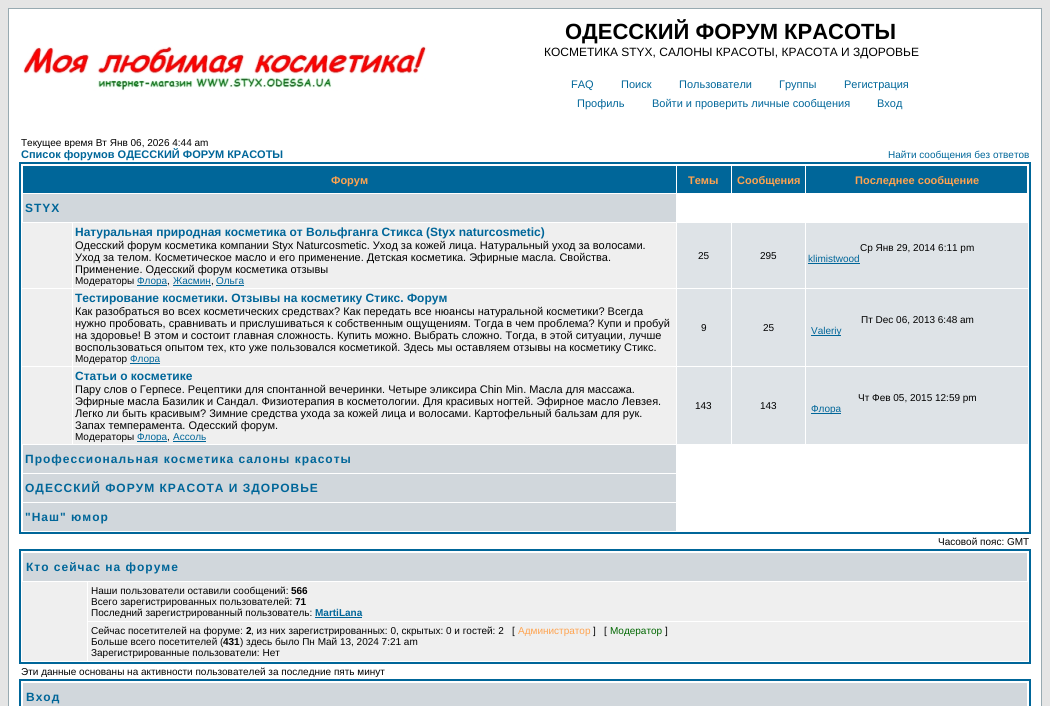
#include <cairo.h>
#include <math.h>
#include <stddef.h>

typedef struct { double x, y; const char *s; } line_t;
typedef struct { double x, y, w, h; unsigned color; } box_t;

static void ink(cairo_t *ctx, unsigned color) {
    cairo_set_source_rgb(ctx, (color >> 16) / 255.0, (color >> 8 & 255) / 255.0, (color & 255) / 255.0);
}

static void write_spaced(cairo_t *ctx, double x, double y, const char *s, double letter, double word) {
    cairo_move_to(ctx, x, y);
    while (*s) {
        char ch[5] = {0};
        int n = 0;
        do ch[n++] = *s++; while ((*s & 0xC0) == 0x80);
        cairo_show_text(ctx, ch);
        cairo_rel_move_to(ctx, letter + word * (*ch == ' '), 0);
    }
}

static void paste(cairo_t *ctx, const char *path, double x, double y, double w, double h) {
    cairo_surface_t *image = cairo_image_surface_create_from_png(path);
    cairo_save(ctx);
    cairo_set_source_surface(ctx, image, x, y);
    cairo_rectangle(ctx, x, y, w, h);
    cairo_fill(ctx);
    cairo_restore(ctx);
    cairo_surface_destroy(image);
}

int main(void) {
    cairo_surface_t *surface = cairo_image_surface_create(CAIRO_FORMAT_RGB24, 1050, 706);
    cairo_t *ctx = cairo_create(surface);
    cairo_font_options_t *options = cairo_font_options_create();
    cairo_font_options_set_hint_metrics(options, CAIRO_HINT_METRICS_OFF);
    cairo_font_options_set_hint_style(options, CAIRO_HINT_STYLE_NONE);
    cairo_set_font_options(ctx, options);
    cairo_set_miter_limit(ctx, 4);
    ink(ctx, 0xE5E5E5);
    cairo_paint(ctx);
    ink(ctx, 0xFFFFFF);
    cairo_rectangle(ctx, 8.5, 8.5, 1033, 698);
    cairo_fill_preserve(ctx);
    ink(ctx, 0x98AAB1);
    cairo_set_line_width(ctx, 1);
    cairo_stroke(ctx);
    paste(ctx, "media/1.png", 23, 46, 404, 45);
    cairo_select_font_face(ctx, "Liberation Sans", CAIRO_FONT_SLANT_NORMAL, CAIRO_FONT_WEIGHT_BOLD);
    cairo_set_font_size(ctx, 22);
    ink(ctx, 0x000000);
    cairo_move_to(ctx, 565, 39);
    cairo_show_text(ctx, "ОДЕССКИЙ ФОРУМ КРАСОТЫ");
    cairo_select_font_face(ctx, "Liberation Sans", CAIRO_FONT_SLANT_NORMAL, CAIRO_FONT_WEIGHT_NORMAL);
    cairo_set_font_size(ctx, 12);
    cairo_move_to(ctx, 544, 56);
    cairo_show_text(ctx, "КОСМЕТИКА STYX, САЛОНЫ КРАСОТЫ, КРАСОТА И ЗДОРОВЬЕ");
    cairo_set_font_size(ctx, 11);
    ink(ctx, 0x006699);
    {
        static const line_t items[] = {
            {571, 88, "FAQ"},
            {621, 88, "Поиск"},
            {679, 88, "Пользователи"},
            {779, 88, "Группы"},
            {844, 88, "Регистрация"},
            {577, 107, "Профиль"},
            {652, 107, "Войти и проверить личные сообщения"},
            {877, 107, "Вход"},
        };
        for (size_t i = 0; i < sizeof items / sizeof *items; i++) {
            cairo_move_to(ctx, items[i].x, items[i].y);
            cairo_show_text(ctx, items[i].s);
        }
    }
    cairo_set_font_size(ctx, 10);
    ink(ctx, 0x000000);
    cairo_move_to(ctx, 21, 146);
    cairo_show_text(ctx, "Текущее время Вт Янв 06, 2026 4:44 am");
    cairo_select_font_face(ctx, "Liberation Sans", CAIRO_FONT_SLANT_NORMAL, CAIRO_FONT_WEIGHT_BOLD);
    cairo_set_font_size(ctx, 11);
    ink(ctx, 0x006699);
    cairo_move_to(ctx, 21, 158);
    cairo_show_text(ctx, "Список форумов ОДЕССКИЙ ФОРУМ КРАСОТЫ");
    cairo_select_font_face(ctx, "Liberation Sans", CAIRO_FONT_SLANT_NORMAL, CAIRO_FONT_WEIGHT_NORMAL);
    cairo_set_font_size(ctx, 10);
    cairo_move_to(ctx, 888, 158);
    cairo_show_text(ctx, "Найти сообщения без ответов");
    cairo_rectangle(ctx, 20, 163, 1010, 370);
    cairo_set_line_width(ctx, 2);
    cairo_stroke(ctx);
    cairo_rectangle(ctx, 23, 166, 653, 27);
    cairo_fill(ctx);
    cairo_select_font_face(ctx, "Liberation Sans", CAIRO_FONT_SLANT_NORMAL, CAIRO_FONT_WEIGHT_BOLD);
    cairo_set_font_size(ctx, 11);
    ink(ctx, 0xFFA34F);
    cairo_move_to(ctx, 331, 184);
    cairo_show_text(ctx, "Форум");
    ink(ctx, 0x006699);
    cairo_rectangle(ctx, 677, 166, 54, 27);
    cairo_fill(ctx);
    ink(ctx, 0xFFA34F);
    cairo_move_to(ctx, 688, 184);
    cairo_show_text(ctx, "Темы");
    ink(ctx, 0x006699);
    cairo_rectangle(ctx, 732, 166, 73, 27);
    cairo_fill(ctx);
    ink(ctx, 0xFFA34F);
    cairo_move_to(ctx, 737, 184);
    cairo_show_text(ctx, "Сообщения");
    ink(ctx, 0x006699);
    cairo_rectangle(ctx, 806, 166, 221, 27);
    cairo_fill(ctx);
    ink(ctx, 0xFFA34F);
    cairo_move_to(ctx, 855, 184);
    cairo_show_text(ctx, "Последнее сообщение");
    ink(ctx, 0xD1D7DC);
    cairo_rectangle(ctx, 23, 194, 653, 28);
    cairo_fill(ctx);
    cairo_set_font_size(ctx, 12);
    ink(ctx, 0x006699);
    write_spaced(ctx, 25, 212, "STYX", 1, 0);
    ink(ctx, 0xEFEFEF);
    cairo_rectangle(ctx, 22, 223, 50, 65);
    cairo_fill(ctx);
    cairo_rectangle(ctx, 73, 223, 603, 65);
    cairo_fill(ctx);
    ink(ctx, 0x006699);
    cairo_move_to(ctx, 75, 236);
    cairo_show_text(ctx, "Натуральная природная косметика от Вольфганга Стикса (Styx naturcosmetic)");
    cairo_select_font_face(ctx, "Liberation Sans", CAIRO_FONT_SLANT_NORMAL, CAIRO_FONT_WEIGHT_NORMAL);
    cairo_set_font_size(ctx, 11);
    ink(ctx, 0x000000);
    {
        static const line_t items[] = {
            {75, 249, "Одесский форум косметика компании Styx Naturcosmetic. Уход за кожей лица. Натуральный уход за волосами."},
            {75, 261, "Уход за телом. Косметическое масло и его применение. Детская косметика. Эфирные масла. Свойства."},
            {75, 273, "Применение. Одесский форум косметика отзывы"},
        };
        for (size_t i = 0; i < sizeof items / sizeof *items; i++) {
            cairo_move_to(ctx, items[i].x, items[i].y);
            cairo_show_text(ctx, items[i].s);
        }
    }
    cairo_set_font_size(ctx, 10);
    cairo_move_to(ctx, 75, 284);
    cairo_show_text(ctx, "Модераторы");
    ink(ctx, 0x006699);
    cairo_rectangle(ctx, 137, 285, 30, 1);
    cairo_fill(ctx);
    cairo_move_to(ctx, 137, 284);
    cairo_show_text(ctx, "Флора");
    ink(ctx, 0x000000);
    cairo_move_to(ctx, 167, 284);
    cairo_show_text(ctx, ",");
    ink(ctx, 0x006699);
    cairo_move_to(ctx, 173, 284);
    cairo_show_text(ctx, "Жасмин");
    ink(ctx, 0x000000);
    cairo_move_to(ctx, 211, 284);
    cairo_show_text(ctx, ",");
    ink(ctx, 0x006699);
    cairo_rectangle(ctx, 173, 285, 38, 1);
    cairo_fill(ctx);
    cairo_rectangle(ctx, 216, 285, 28, 1);
    cairo_fill(ctx);
    cairo_move_to(ctx, 216, 284);
    cairo_show_text(ctx, "Ольга");
    ink(ctx, 0xDEE3E7);
    cairo_rectangle(ctx, 677, 223, 54, 65);
    cairo_fill(ctx);
    ink(ctx, 0x000000);
    cairo_move_to(ctx, 698, 259);
    cairo_show_text(ctx, "25");
    ink(ctx, 0xDEE3E7);
    cairo_rectangle(ctx, 732, 223, 73, 65);
    cairo_fill(ctx);
    ink(ctx, 0x000000);
    cairo_move_to(ctx, 760, 259);
    cairo_show_text(ctx, "295");
    ink(ctx, 0xDEE3E7);
    cairo_rectangle(ctx, 806, 223, 222, 65);
    cairo_fill(ctx);
    ink(ctx, 0x000000);
    cairo_move_to(ctx, 860, 251);
    cairo_show_text(ctx, "Ср Янв 29, 2014 6:11 pm");
    ink(ctx, 0x006699);
    cairo_move_to(ctx, 808, 262);
    cairo_show_text(ctx, "klimistwood");
    {
        static const box_t items[] = {
            {808, 263, 52, 1, 0x006699},
            {22, 289, 50, 77, 0xEFEFEF},
            {73, 289, 603, 77, 0xEFEFEF},
        };
        for (size_t i = 0; i < sizeof items / sizeof *items; i++) {
            ink(ctx, items[i].color);
            cairo_rectangle(ctx, items[i].x, items[i].y, items[i].w, items[i].h);
            cairo_fill(ctx);
        }
    }
    cairo_select_font_face(ctx, "Liberation Sans", CAIRO_FONT_SLANT_NORMAL, CAIRO_FONT_WEIGHT_BOLD);
    cairo_set_font_size(ctx, 12);
    ink(ctx, 0x006699);
    cairo_move_to(ctx, 75, 302);
    cairo_show_text(ctx, "Тестирование косметики. Отзывы на косметику Стикс. Форум");
    cairo_select_font_face(ctx, "Liberation Sans", CAIRO_FONT_SLANT_NORMAL, CAIRO_FONT_WEIGHT_NORMAL);
    cairo_set_font_size(ctx, 11);
    ink(ctx, 0x000000);
    {
        static const line_t items[] = {
            {75, 315, "Как разобраться во всех косметических средствах? Как передать все нюансы натуральной косметики? Всегда"},
            {75, 327, "нужно пробовать, сравнивать и прислушиваться к собственным ощущениям. Тогда в чем проблема? Купи и пробуй"},
            {75, 339, "на здоровье! В этом и состоит главная сложность. Купить можно. Выбрать сложно. Тогда, в этой ситуации, лучше"},
            {75, 351, "воспользоваться опытом тех, кто уже пользовался косметикой. Здесь мы оставляем отзывы на косметику Стикс."},
        };
        for (size_t i = 0; i < sizeof items / sizeof *items; i++) {
            cairo_move_to(ctx, items[i].x, items[i].y);
            cairo_show_text(ctx, items[i].s);
        }
    }
    cairo_set_font_size(ctx, 10);
    cairo_move_to(ctx, 75, 362);
    cairo_show_text(ctx, "Модератор");
    ink(ctx, 0x006699);
    cairo_rectangle(ctx, 130, 363, 30, 1);
    cairo_fill(ctx);
    cairo_move_to(ctx, 130, 362);
    cairo_show_text(ctx, "Флора");
    ink(ctx, 0xDEE3E7);
    cairo_rectangle(ctx, 677, 289, 54, 77);
    cairo_fill(ctx);
    ink(ctx, 0x000000);
    cairo_move_to(ctx, 701, 331);
    cairo_show_text(ctx, "9");
    ink(ctx, 0xDEE3E7);
    cairo_rectangle(ctx, 732, 289, 73, 77);
    cairo_fill(ctx);
    ink(ctx, 0x000000);
    cairo_move_to(ctx, 763, 331);
    cairo_show_text(ctx, "25");
    ink(ctx, 0xDEE3E7);
    cairo_rectangle(ctx, 806, 289, 222, 77);
    cairo_fill(ctx);
    ink(ctx, 0x000000);
    cairo_move_to(ctx, 861, 323);
    cairo_show_text(ctx, "Пт Dec 06, 2013 6:48 am");
    ink(ctx, 0x006699);
    cairo_rectangle(ctx, 811, 335, 30, 1);
    cairo_fill(ctx);
    cairo_move_to(ctx, 811, 334);
    cairo_show_text(ctx, "Valeriy");
    ink(ctx, 0xEFEFEF);
    cairo_rectangle(ctx, 22, 367, 50, 77);
    cairo_fill(ctx);
    cairo_rectangle(ctx, 73, 367, 603, 77);
    cairo_fill(ctx);
    cairo_select_font_face(ctx, "Liberation Sans", CAIRO_FONT_SLANT_NORMAL, CAIRO_FONT_WEIGHT_BOLD);
    cairo_set_font_size(ctx, 12);
    ink(ctx, 0x006699);
    cairo_move_to(ctx, 75, 380);
    cairo_show_text(ctx, "Статьи о косметике");
    cairo_select_font_face(ctx, "Liberation Sans", CAIRO_FONT_SLANT_NORMAL, CAIRO_FONT_WEIGHT_NORMAL);
    cairo_set_font_size(ctx, 11);
    ink(ctx, 0x000000);
    {
        static const line_t items[] = {
            {75, 393, "Пару слов о Герпесе. Рецептики для спонтанной вечеринки. Четыре эликсира Chin Min. Масла для массажа."},
            {75, 405, "Эфирные масла Базилик и Сандал. Физиотерапия в косметологии. Для красивых ногтей. Эфирное масло Левзея."},
            {75, 417, "Легко ли быть красивым? Зимние средства ухода за кожей лица и волосами. Картофельный бальзам для рук."},
            {75, 429, "Запах темперамента. Одесский форум."},
        };
        for (size_t i = 0; i < sizeof items / sizeof *items; i++) {
            cairo_move_to(ctx, items[i].x, items[i].y);
            cairo_show_text(ctx, items[i].s);
        }
    }
    cairo_set_font_size(ctx, 10);
    cairo_move_to(ctx, 75, 440);
    cairo_show_text(ctx, "Модераторы");
    ink(ctx, 0x006699);
    cairo_rectangle(ctx, 137, 441, 30, 1);
    cairo_fill(ctx);
    cairo_move_to(ctx, 137, 440);
    cairo_show_text(ctx, "Флора");
    ink(ctx, 0x000000);
    cairo_move_to(ctx, 167, 440);
    cairo_show_text(ctx, ",");
    ink(ctx, 0x006699);
    cairo_rectangle(ctx, 173, 441, 33, 1);
    cairo_fill(ctx);
    cairo_move_to(ctx, 173, 440);
    cairo_show_text(ctx, "Ассоль");
    ink(ctx, 0xDEE3E7);
    cairo_rectangle(ctx, 677, 367, 54, 77);
    cairo_fill(ctx);
    ink(ctx, 0x000000);
    cairo_move_to(ctx, 695, 409);
    cairo_show_text(ctx, "143");
    ink(ctx, 0xDEE3E7);
    cairo_rectangle(ctx, 732, 367, 73, 77);
    cairo_fill(ctx);
    ink(ctx, 0x000000);
    cairo_move_to(ctx, 760, 409);
    cairo_show_text(ctx, "143");
    ink(ctx, 0xDEE3E7);
    cairo_rectangle(ctx, 806, 367, 222, 77);
    cairo_fill(ctx);
    ink(ctx, 0x000000);
    cairo_move_to(ctx, 858, 401);
    cairo_show_text(ctx, "Чт Фев 05, 2015 12:59 pm");
    ink(ctx, 0x006699);
    cairo_rectangle(ctx, 811, 413, 30, 1);
    cairo_fill(ctx);
    cairo_move_to(ctx, 811, 412);
    cairo_show_text(ctx, "Флора");
    ink(ctx, 0xD1D7DC);
    cairo_rectangle(ctx, 23, 445, 653, 28);
    cairo_fill(ctx);
    cairo_select_font_face(ctx, "Liberation Sans", CAIRO_FONT_SLANT_NORMAL, CAIRO_FONT_WEIGHT_BOLD);
    cairo_set_font_size(ctx, 12);
    ink(ctx, 0x006699);
    write_spaced(ctx, 25, 463, "Профессиональная косметика салоны красоты", 1, 0);
    ink(ctx, 0xD1D7DC);
    cairo_rectangle(ctx, 23, 474, 653, 28);
    cairo_fill(ctx);
    ink(ctx, 0x006699);
    write_spaced(ctx, 25, 492, "ОДЕССКИЙ ФОРУМ КРАСОТА И ЗДОРОВЬЕ", 1, 0);
    ink(ctx, 0xD1D7DC);
    cairo_rectangle(ctx, 23, 503, 653, 28);
    cairo_fill(ctx);
    ink(ctx, 0x006699);
    write_spaced(ctx, 25, 521, "\"Наш\" юмор", 1, 0);
    cairo_select_font_face(ctx, "Liberation Sans", CAIRO_FONT_SLANT_NORMAL, CAIRO_FONT_WEIGHT_NORMAL);
    cairo_set_font_size(ctx, 10);
    ink(ctx, 0x000000);
    cairo_move_to(ctx, 938, 545);
    cairo_show_text(ctx, "Часовой пояс: GMT");
    cairo_rectangle(ctx, 20, 550, 1010, 113);
    ink(ctx, 0x006699);
    cairo_stroke(ctx);
    ink(ctx, 0xD1D7DC);
    cairo_rectangle(ctx, 23, 553, 1004, 28);
    cairo_fill(ctx);
    cairo_select_font_face(ctx, "Liberation Sans", CAIRO_FONT_SLANT_NORMAL, CAIRO_FONT_WEIGHT_BOLD);
    cairo_set_font_size(ctx, 12);
    ink(ctx, 0x006699);
    write_spaced(ctx, 26, 571, "Кто сейчас на форуме", 1, 0);
    ink(ctx, 0xEFEFEF);
    cairo_rectangle(ctx, 22, 582, 65, 79);
    cairo_fill(ctx);
    cairo_rectangle(ctx, 88, 582, 940, 39);
    cairo_fill(ctx);
    cairo_select_font_face(ctx, "Liberation Sans", CAIRO_FONT_SLANT_NORMAL, CAIRO_FONT_WEIGHT_NORMAL);
    cairo_set_font_size(ctx, 10);
    ink(ctx, 0x000000);
    cairo_move_to(ctx, 91, 594);
    cairo_show_text(ctx, "Наши пользователи оставили сообщений:");
    cairo_select_font_face(ctx, "Liberation Sans", CAIRO_FONT_SLANT_NORMAL, CAIRO_FONT_WEIGHT_BOLD);
    cairo_move_to(ctx, 291, 594);
    cairo_show_text(ctx, "566");
    cairo_select_font_face(ctx, "Liberation Sans", CAIRO_FONT_SLANT_NORMAL, CAIRO_FONT_WEIGHT_NORMAL);
    cairo_move_to(ctx, 91, 605);
    cairo_show_text(ctx, "Всего зарегистрированных пользователей:");
    cairo_select_font_face(ctx, "Liberation Sans", CAIRO_FONT_SLANT_NORMAL, CAIRO_FONT_WEIGHT_BOLD);
    cairo_move_to(ctx, 295, 605);
    cairo_show_text(ctx, "71");
    cairo_select_font_face(ctx, "Liberation Sans", CAIRO_FONT_SLANT_NORMAL, CAIRO_FONT_WEIGHT_NORMAL);
    cairo_move_to(ctx, 91, 616);
    cairo_show_text(ctx, "Последний зарегистрированный пользователь:");
    cairo_select_font_face(ctx, "Liberation Sans", CAIRO_FONT_SLANT_NORMAL, CAIRO_FONT_WEIGHT_BOLD);
    ink(ctx, 0x006699);
    cairo_move_to(ctx, 315, 616);
    cairo_show_text(ctx, "MartiLana");
    cairo_rectangle(ctx, 315, 617, 47, 1);
    cairo_fill(ctx);
    ink(ctx, 0xEFEFEF);
    cairo_rectangle(ctx, 88, 622, 940, 39);
    cairo_fill(ctx);
    cairo_select_font_face(ctx, "Liberation Sans", CAIRO_FONT_SLANT_NORMAL, CAIRO_FONT_WEIGHT_NORMAL);
    ink(ctx, 0x000000);
    cairo_move_to(ctx, 91, 634);
    cairo_show_text(ctx, "Сейчас посетителей на форуме:");
    cairo_select_font_face(ctx, "Liberation Sans", CAIRO_FONT_SLANT_NORMAL, CAIRO_FONT_WEIGHT_BOLD);
    cairo_move_to(ctx, 246, 634);
    cairo_show_text(ctx, "2");
    cairo_select_font_face(ctx, "Liberation Sans", CAIRO_FONT_SLANT_NORMAL, CAIRO_FONT_WEIGHT_NORMAL);
    cairo_move_to(ctx, 251, 634);
    cairo_show_text(ctx, ", из них зарегистрированных: 0, скрытых: 0 и гостей: 2   [");
    ink(ctx, 0xFFA34F);
    cairo_move_to(ctx, 518, 634);
    cairo_show_text(ctx, "Администратор");
    ink(ctx, 0x000000);
    cairo_move_to(ctx, 593, 634);
    cairo_show_text(ctx, "]   [");
    ink(ctx, 0x006600);
    cairo_move_to(ctx, 610, 634);
    cairo_show_text(ctx, "Модератор");
    ink(ctx, 0x000000);
    cairo_move_to(ctx, 665, 634);
    cairo_show_text(ctx, "]");
    cairo_move_to(ctx, 91, 645);
    cairo_show_text(ctx, "Больше всего посетителей (");
    cairo_select_font_face(ctx, "Liberation Sans", CAIRO_FONT_SLANT_NORMAL, CAIRO_FONT_WEIGHT_BOLD);
    cairo_move_to(ctx, 223, 645);
    cairo_show_text(ctx, "431");
    cairo_select_font_face(ctx, "Liberation Sans", CAIRO_FONT_SLANT_NORMAL, CAIRO_FONT_WEIGHT_NORMAL);
    {
        static const line_t items[] = {
            {240, 645, ") здесь было Пн Май 13, 2024 7:21 am"},
            {91, 656, "Зарегистрированные пользователи: Нет"},
            {21, 675, "Эти данные основаны на активности пользователей за последние пять минут"},
        };
        for (size_t i = 0; i < sizeof items / sizeof *items; i++) {
            cairo_move_to(ctx, items[i].x, items[i].y);
            cairo_show_text(ctx, items[i].s);
        }
    }
    cairo_rectangle(ctx, 20, 680, 1010, 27);
    ink(ctx, 0x006699);
    cairo_stroke(ctx);
    ink(ctx, 0xD1D7DC);
    cairo_rectangle(ctx, 23, 683, 1004, 23);
    cairo_fill(ctx);
    cairo_select_font_face(ctx, "Liberation Sans", CAIRO_FONT_SLANT_NORMAL, CAIRO_FONT_WEIGHT_BOLD);
    cairo_set_font_size(ctx, 12);
    ink(ctx, 0x006699);
    write_spaced(ctx, 26, 701, "Вход", 1, 0);
    cairo_surface_write_to_png(surface, "image.png");
    cairo_font_options_destroy(options);
    cairo_destroy(ctx);
    cairo_surface_destroy(surface);
    return 0;
}
